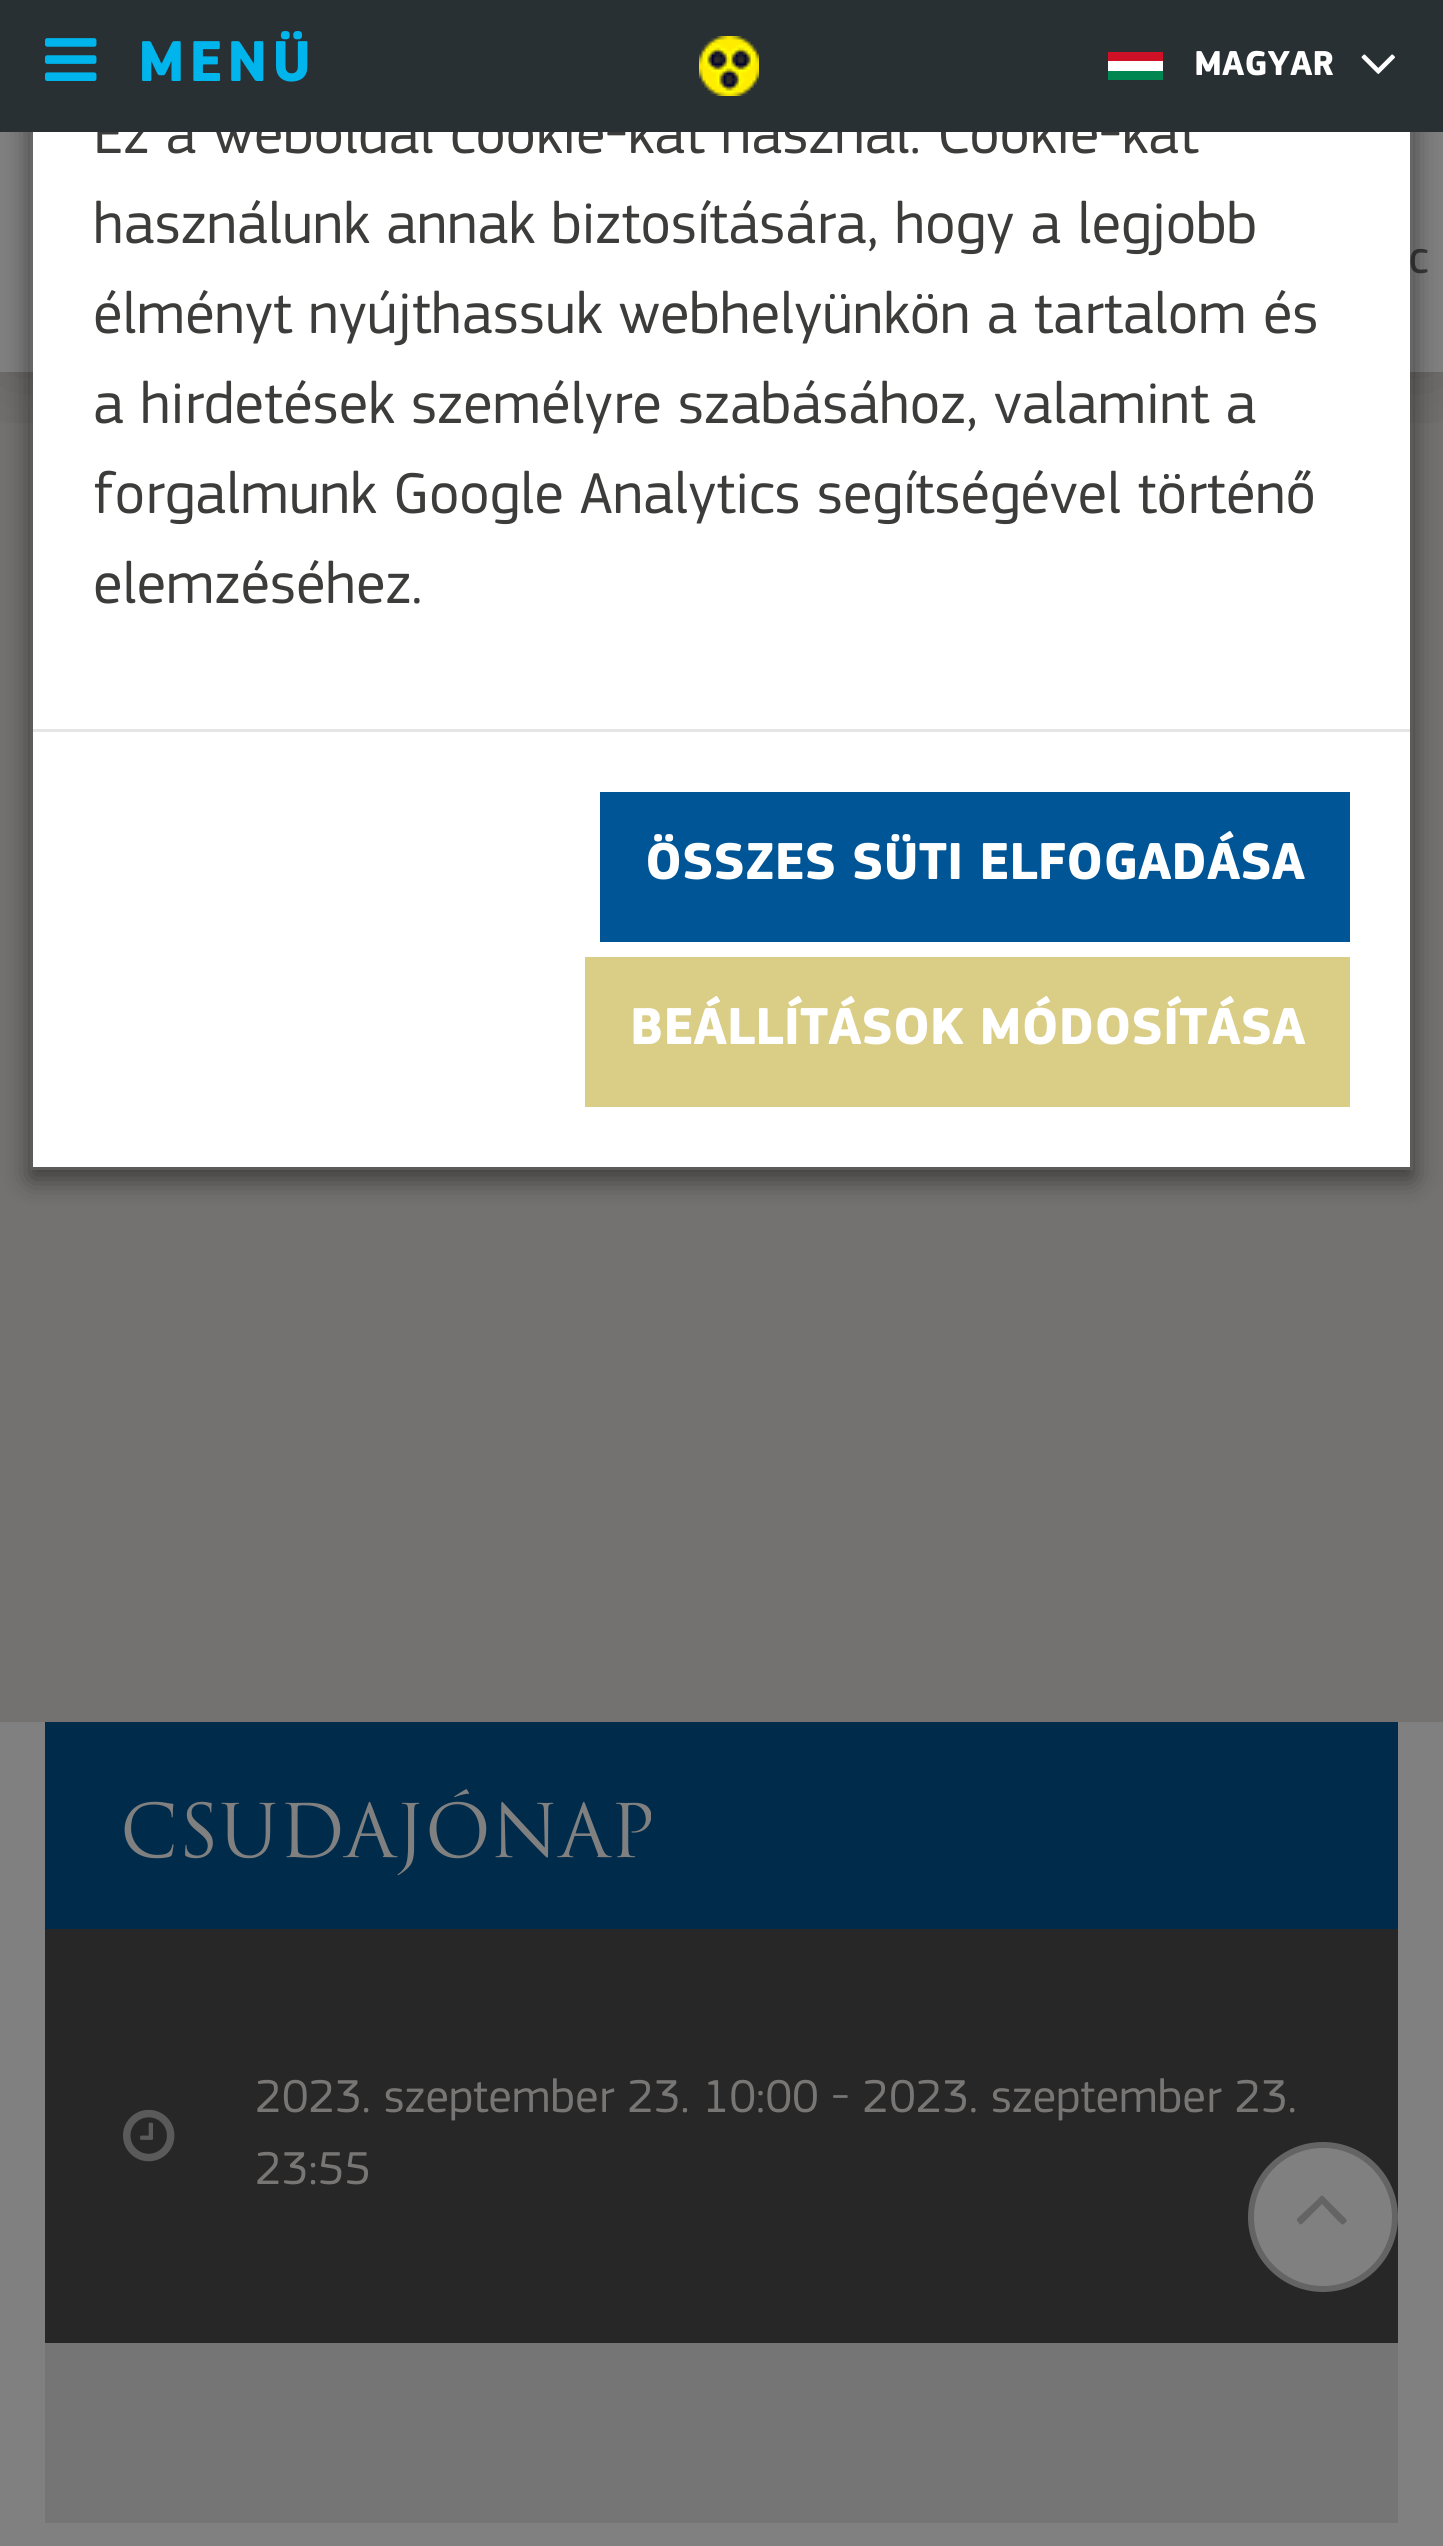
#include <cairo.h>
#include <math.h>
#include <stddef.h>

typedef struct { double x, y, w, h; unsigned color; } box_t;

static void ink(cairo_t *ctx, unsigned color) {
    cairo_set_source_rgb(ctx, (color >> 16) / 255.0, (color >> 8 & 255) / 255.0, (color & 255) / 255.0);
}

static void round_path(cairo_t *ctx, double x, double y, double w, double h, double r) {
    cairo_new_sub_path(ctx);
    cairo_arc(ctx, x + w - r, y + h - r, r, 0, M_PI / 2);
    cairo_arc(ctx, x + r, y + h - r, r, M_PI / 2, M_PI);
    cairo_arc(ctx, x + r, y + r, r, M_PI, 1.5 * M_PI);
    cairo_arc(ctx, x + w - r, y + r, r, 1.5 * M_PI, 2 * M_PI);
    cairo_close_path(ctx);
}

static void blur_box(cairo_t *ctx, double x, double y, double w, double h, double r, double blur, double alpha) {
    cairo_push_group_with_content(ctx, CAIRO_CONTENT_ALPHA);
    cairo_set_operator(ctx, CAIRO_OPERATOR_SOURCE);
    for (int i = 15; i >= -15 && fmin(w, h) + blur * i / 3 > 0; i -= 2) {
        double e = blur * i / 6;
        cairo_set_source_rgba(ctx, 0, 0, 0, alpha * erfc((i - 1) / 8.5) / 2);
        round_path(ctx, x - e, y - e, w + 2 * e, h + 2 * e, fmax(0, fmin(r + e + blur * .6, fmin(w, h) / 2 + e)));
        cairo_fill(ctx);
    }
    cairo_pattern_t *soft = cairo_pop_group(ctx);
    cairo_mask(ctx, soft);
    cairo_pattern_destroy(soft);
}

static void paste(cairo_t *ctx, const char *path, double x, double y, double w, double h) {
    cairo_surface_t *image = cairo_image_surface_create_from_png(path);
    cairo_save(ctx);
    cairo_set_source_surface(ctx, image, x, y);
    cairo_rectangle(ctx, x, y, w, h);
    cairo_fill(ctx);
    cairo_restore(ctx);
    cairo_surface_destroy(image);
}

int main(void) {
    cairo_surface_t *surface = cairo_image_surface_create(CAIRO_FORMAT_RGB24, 1443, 2546);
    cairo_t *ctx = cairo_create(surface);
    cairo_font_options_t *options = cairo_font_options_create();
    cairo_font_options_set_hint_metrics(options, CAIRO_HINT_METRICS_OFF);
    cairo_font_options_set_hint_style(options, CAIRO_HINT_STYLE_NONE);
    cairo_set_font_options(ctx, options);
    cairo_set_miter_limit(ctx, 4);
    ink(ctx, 0x808080);
    cairo_paint(ctx);
    ink(ctx, 0x737270);
    cairo_rectangle(ctx, 0, 372, 1443, 1350);
    cairo_fill(ctx);
    cairo_save(ctx);
    cairo_rectangle(ctx, 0, 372, 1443, 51);
    cairo_clip(ctx);
    ink(ctx, 0x000000);
    blur_box(ctx, 0, 132, 1443, 240, 0, 45, 0.2);
    cairo_restore(ctx);
    paste(ctx, "media/9.png", 1410, 248, 18, 26);
    cairo_save(ctx);
    cairo_set_fill_rule(ctx, CAIRO_FILL_RULE_EVEN_ODD);
    cairo_new_path(ctx);
    cairo_move_to(ctx, 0, 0);
    cairo_line_to(ctx, 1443, 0);
    cairo_line_to(ctx, 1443, 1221);
    cairo_line_to(ctx, 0, 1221);
    cairo_close_path(ctx);
    cairo_move_to(ctx, 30, 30);
    cairo_line_to(ctx, 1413, 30);
    cairo_line_to(ctx, 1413, 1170);
    cairo_line_to(ctx, 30, 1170);
    cairo_close_path(ctx);
    cairo_clip(ctx);
    ink(ctx, 0x000000);
    blur_box(ctx, 30, 39, 1383, 1140, 0, 13.5, 0.5);
    cairo_restore(ctx);
    ink(ctx, 0xFFFFFF);
    cairo_rectangle(ctx, 33, 132, 1377, 1035);
    cairo_fill(ctx);
    cairo_rectangle(ctx, 31.5, 31.5, 1380, 1137);
    cairo_set_source_rgba(ctx, 0, 0, 0, 0.2);
    cairo_set_line_width(ctx, 3);
    cairo_stroke(ctx);
    paste(ctx, "media/1.png", 97, 132, 1102, 22);
    paste(ctx, "media/2.png", 96, 200, 1159, 56);
    paste(ctx, "media/3.png", 95, 290, 1221, 56);
    paste(ctx, "media/4.png", 95, 380, 1161, 54);
    paste(ctx, "media/5.png", 95, 470, 1218, 55);
    paste(ctx, "media/6.png", 95, 560, 325, 44);
    ink(ctx, 0xE5E5E5);
    cairo_rectangle(ctx, 33, 729, 1377, 3);
    cairo_fill(ctx);
    ink(ctx, 0x005596);
    cairo_rectangle(ctx, 600, 792, 750, 150);
    cairo_fill(ctx);
    paste(ctx, "media/7.png", 648, 831, 657, 49);
    ink(ctx, 0xDACE87);
    cairo_rectangle(ctx, 585, 957, 765, 150);
    cairo_fill(ctx);
    paste(ctx, "media/8.png", 633, 996, 673, 49);
    ink(ctx, 0x293034);
    cairo_rectangle(ctx, 0, 0, 1443, 132);
    cairo_fill(ctx);
    paste(ctx, "media/10.png", 45, 38, 52, 43);
    paste(ctx, "media/11.png", 142, 31, 166, 51);
    paste(ctx, "media/12.png", 699, 36, 60, 60);
    ink(ctx, 0xCE1126);
    cairo_rectangle(ctx, 1108, 52, 55, 9);
    cairo_fill(ctx);
    paste(ctx, "media/13.png", 1196, 50, 137, 26);
    paste(ctx, "media/14.png", 1361, 54, 34, 20);
    {
        static const box_t items[] = {
            {1108, 61, 55, 10, 0xFFFFFF},
            {1108, 71, 55, 9, 0x008751},
            {45, 1722, 1353, 207, 0x002B4B},
        };
        for (size_t i = 0; i < sizeof items / sizeof *items; i++) {
            ink(ctx, items[i].color);
            cairo_rectangle(ctx, items[i].x, items[i].y, items[i].w, items[i].h);
            cairo_fill(ctx);
        }
    }
    cairo_select_font_face(ctx, "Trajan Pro", CAIRO_FONT_SLANT_NORMAL, CAIRO_FONT_WEIGHT_NORMAL);
    cairo_set_font_size(ctx, 72);
    ink(ctx, 0x808080);
    cairo_move_to(ctx, 120, 1857);
    cairo_show_text(ctx, "CSUDAJÓNAP");
    ink(ctx, 0x272727);
    cairo_rectangle(ctx, 45, 1929, 1353, 414);
    cairo_fill(ctx);
    paste(ctx, "media/15.png", 257, 2078, 1038, 43);
    paste(ctx, "media/16.png", 123, 2109, 52, 53);
    paste(ctx, "media/17.png", 257, 2151, 111, 34);
    ink(ctx, 0x757575);
    cairo_rectangle(ctx, 45, 2343, 1353, 180);
    cairo_fill(ctx);
    ink(ctx, 0x808080);
    cairo_arc(ctx, 1323, 2217, 72, 0, 2 * M_PI);
    cairo_fill_preserve(ctx);
    ink(ctx, 0x656464);
    cairo_set_line_width(ctx, 6);
    cairo_stroke(ctx);
    cairo_new_path(ctx);
    cairo_move_to(ctx, 1346, 2219);
    cairo_curve_to(ctx, 1348, 2221, 1346, 2222, 1345, 2223);
    cairo_curve_to(ctx, 1342, 2226, 1342, 2224, 1338, 2221);
    cairo_line_to(ctx, 1322, 2204);
    cairo_line_to(ctx, 1302, 2224);
    cairo_curve_to(ctx, 1300, 2225, 1299, 2224, 1299, 2223);
    cairo_curve_to(ctx, 1295, 2219, 1297, 2219, 1301, 2215);
    cairo_line_to(ctx, 1317, 2200);
    cairo_curve_to(ctx, 1323, 2194, 1321, 2194, 1327, 2200);
    cairo_close_path(ctx);
    cairo_fill(ctx);
    cairo_surface_write_to_png(surface, "image.png");
    cairo_font_options_destroy(options);
    cairo_destroy(ctx);
    cairo_surface_destroy(surface);
    return 0;
}
